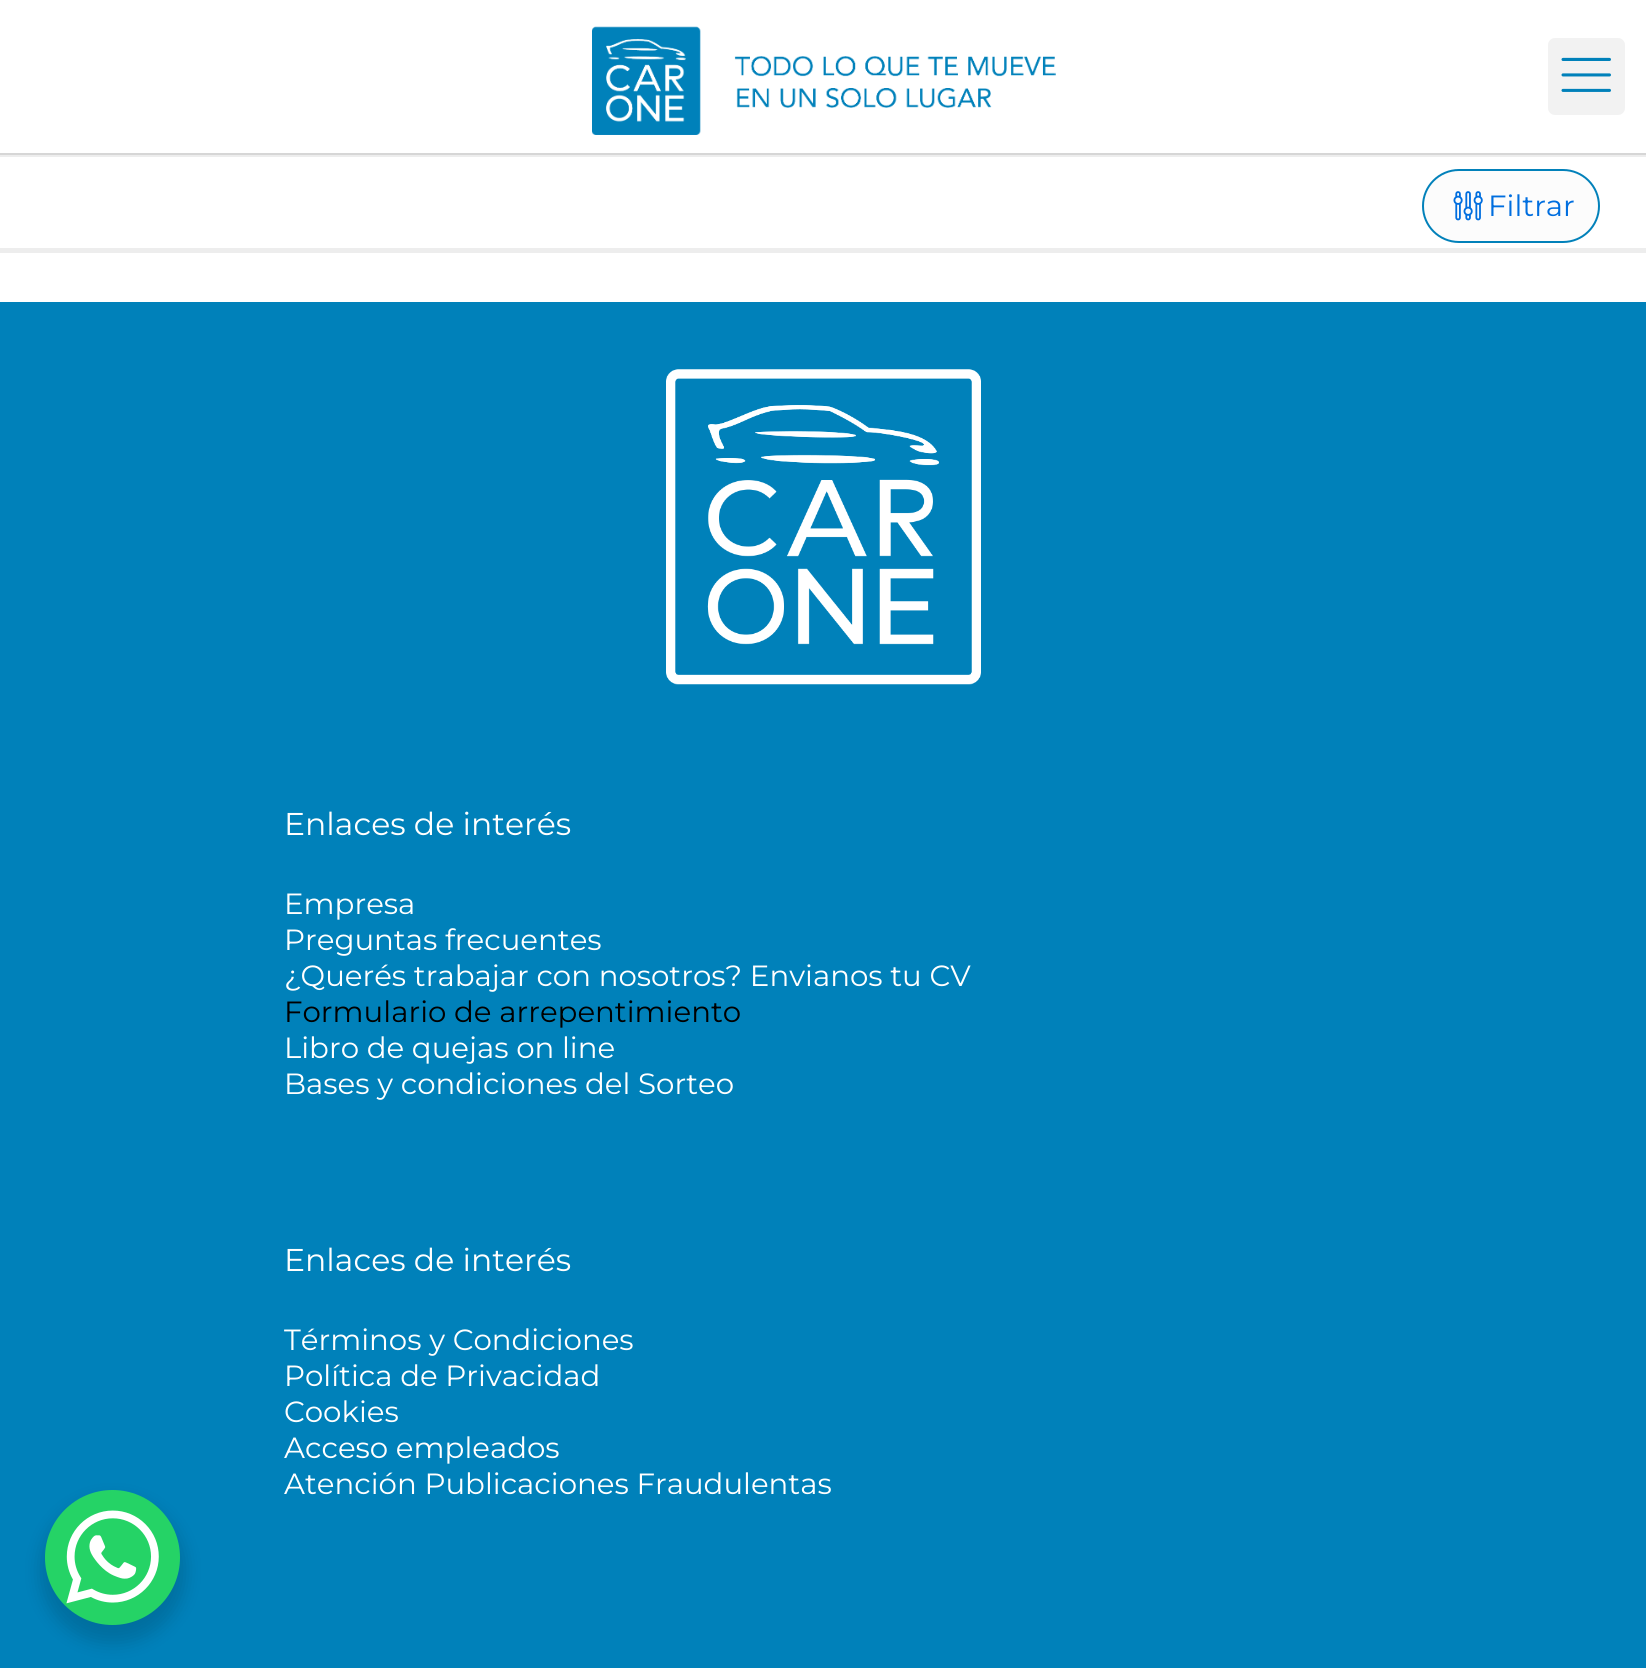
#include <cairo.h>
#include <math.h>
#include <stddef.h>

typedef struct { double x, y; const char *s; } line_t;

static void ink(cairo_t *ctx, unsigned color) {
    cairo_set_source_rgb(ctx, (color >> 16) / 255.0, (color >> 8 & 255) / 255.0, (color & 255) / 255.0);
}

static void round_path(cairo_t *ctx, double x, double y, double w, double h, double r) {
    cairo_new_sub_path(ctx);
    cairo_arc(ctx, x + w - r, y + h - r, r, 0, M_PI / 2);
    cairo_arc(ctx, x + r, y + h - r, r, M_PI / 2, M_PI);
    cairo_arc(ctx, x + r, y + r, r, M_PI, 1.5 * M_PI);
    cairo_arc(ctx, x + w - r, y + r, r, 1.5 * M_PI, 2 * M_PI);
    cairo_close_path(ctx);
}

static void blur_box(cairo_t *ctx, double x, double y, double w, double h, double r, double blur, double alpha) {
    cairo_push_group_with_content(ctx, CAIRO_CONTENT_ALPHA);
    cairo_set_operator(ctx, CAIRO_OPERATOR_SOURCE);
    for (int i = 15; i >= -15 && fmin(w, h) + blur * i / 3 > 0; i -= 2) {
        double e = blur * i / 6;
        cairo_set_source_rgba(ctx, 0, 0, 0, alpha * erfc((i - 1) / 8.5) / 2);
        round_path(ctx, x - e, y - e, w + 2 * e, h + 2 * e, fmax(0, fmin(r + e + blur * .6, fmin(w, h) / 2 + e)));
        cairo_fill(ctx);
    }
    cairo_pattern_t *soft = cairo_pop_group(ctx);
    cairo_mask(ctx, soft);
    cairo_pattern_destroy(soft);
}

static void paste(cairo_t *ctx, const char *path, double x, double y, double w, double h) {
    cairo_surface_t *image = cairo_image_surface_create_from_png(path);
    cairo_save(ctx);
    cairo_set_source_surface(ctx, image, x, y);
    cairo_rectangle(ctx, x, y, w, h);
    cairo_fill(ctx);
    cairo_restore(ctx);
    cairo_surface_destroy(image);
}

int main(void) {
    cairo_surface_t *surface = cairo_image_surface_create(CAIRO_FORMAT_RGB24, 1646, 1668);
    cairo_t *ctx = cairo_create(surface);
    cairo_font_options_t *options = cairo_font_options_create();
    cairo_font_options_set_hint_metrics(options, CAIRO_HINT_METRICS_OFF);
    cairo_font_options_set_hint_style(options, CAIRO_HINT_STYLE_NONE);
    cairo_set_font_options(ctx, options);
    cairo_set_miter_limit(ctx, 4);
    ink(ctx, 0xFFFFFF);
    cairo_paint(ctx);
    ink(ctx, 0xD6D6D6);
    cairo_rectangle(ctx, 0, 153, 1646, 2);
    cairo_fill(ctx);
    paste(ctx, "media/1.png", 592, 26, 464, 109);
    ink(ctx, 0xF2F2F2);
    round_path(ctx, 1548, 38, 77, 77, 7);
    cairo_fill(ctx);
    paste(ctx, "media/2.png", 1561, 57, 50, 35);
    ink(ctx, 0xEDEDED);
    cairo_rectangle(ctx, 0, 155, 1646, 2);
    cairo_fill(ctx);
    cairo_rectangle(ctx, 0, 248, 1646, 5);
    cairo_fill(ctx);
    ink(ctx, 0xFCFCFC);
    round_path(ctx, 1423, 170, 176, 72, 36);
    cairo_fill_preserve(ctx);
    ink(ctx, 0x0281BA);
    cairo_stroke(ctx);
    paste(ctx, "media/3.png", 1453, 191, 30, 30);
    cairo_select_font_face(ctx, "Montserrat Thin", CAIRO_FONT_SLANT_NORMAL, CAIRO_FONT_WEIGHT_NORMAL);
    cairo_set_font_size(ctx, 29.25);
    ink(ctx, 0x006EDF);
    cairo_move_to(ctx, 1488, 216);
    cairo_show_text(ctx, "Filtrar");
    ink(ctx, 0x0081BA);
    cairo_rectangle(ctx, 0, 302, 1646, 1366);
    cairo_fill(ctx);
    paste(ctx, "media/4.png", 666, 369, 315, 316);
    cairo_set_font_size(ctx, 31.5);
    ink(ctx, 0xFFFFFF);
    cairo_move_to(ctx, 284, 835);
    cairo_show_text(ctx, "Enlaces de interés");
    cairo_set_font_size(ctx, 29.25);
    {
        static const line_t items[] = {
            {284, 914, "Empresa"},
            {284, 950, "Preguntas frecuentes"},
            {284, 986, "¿Querés trabajar con nosotros? Envianos tu CV"},
        };
        for (size_t i = 0; i < sizeof items / sizeof *items; i++) {
            cairo_move_to(ctx, items[i].x, items[i].y);
            cairo_show_text(ctx, items[i].s);
        }
    }
    ink(ctx, 0x000000);
    cairo_move_to(ctx, 284, 1022);
    cairo_show_text(ctx, "Formulario de arrepentimiento");
    ink(ctx, 0xFFFFFF);
    cairo_move_to(ctx, 284, 1058);
    cairo_show_text(ctx, "Libro de quejas on line");
    cairo_move_to(ctx, 284, 1094);
    cairo_show_text(ctx, "Bases y condiciones del Sorteo");
    cairo_set_font_size(ctx, 31.5);
    cairo_move_to(ctx, 284, 1271);
    cairo_show_text(ctx, "Enlaces de interés");
    cairo_set_font_size(ctx, 29.25);
    {
        static const line_t items[] = {
            {284, 1350, "Términos y Condiciones"},
            {284, 1386, "Política de Privacidad"},
            {284, 1422, "Cookies"},
            {284, 1458, "Acceso empleados"},
            {284, 1494, "Atención Publicaciones Fraudulentas"},
        };
        for (size_t i = 0; i < sizeof items / sizeof *items; i++) {
            cairo_move_to(ctx, items[i].x, items[i].y);
            cairo_show_text(ctx, items[i].s);
        }
    }
    ink(ctx, 0x000000);
    blur_box(ctx, 41, 1499, 144, 144, 72, 9, 0.15);
    ink(ctx, 0x25D366);
    cairo_arc(ctx, 112.5, 1557.5, 67.5, 0, 2 * M_PI);
    cairo_fill(ctx);
    paste(ctx, "media/5.png", 66, 1510, 93, 94);
    cairo_surface_write_to_png(surface, "image.png");
    cairo_font_options_destroy(options);
    cairo_destroy(ctx);
    cairo_surface_destroy(surface);
    return 0;
}
